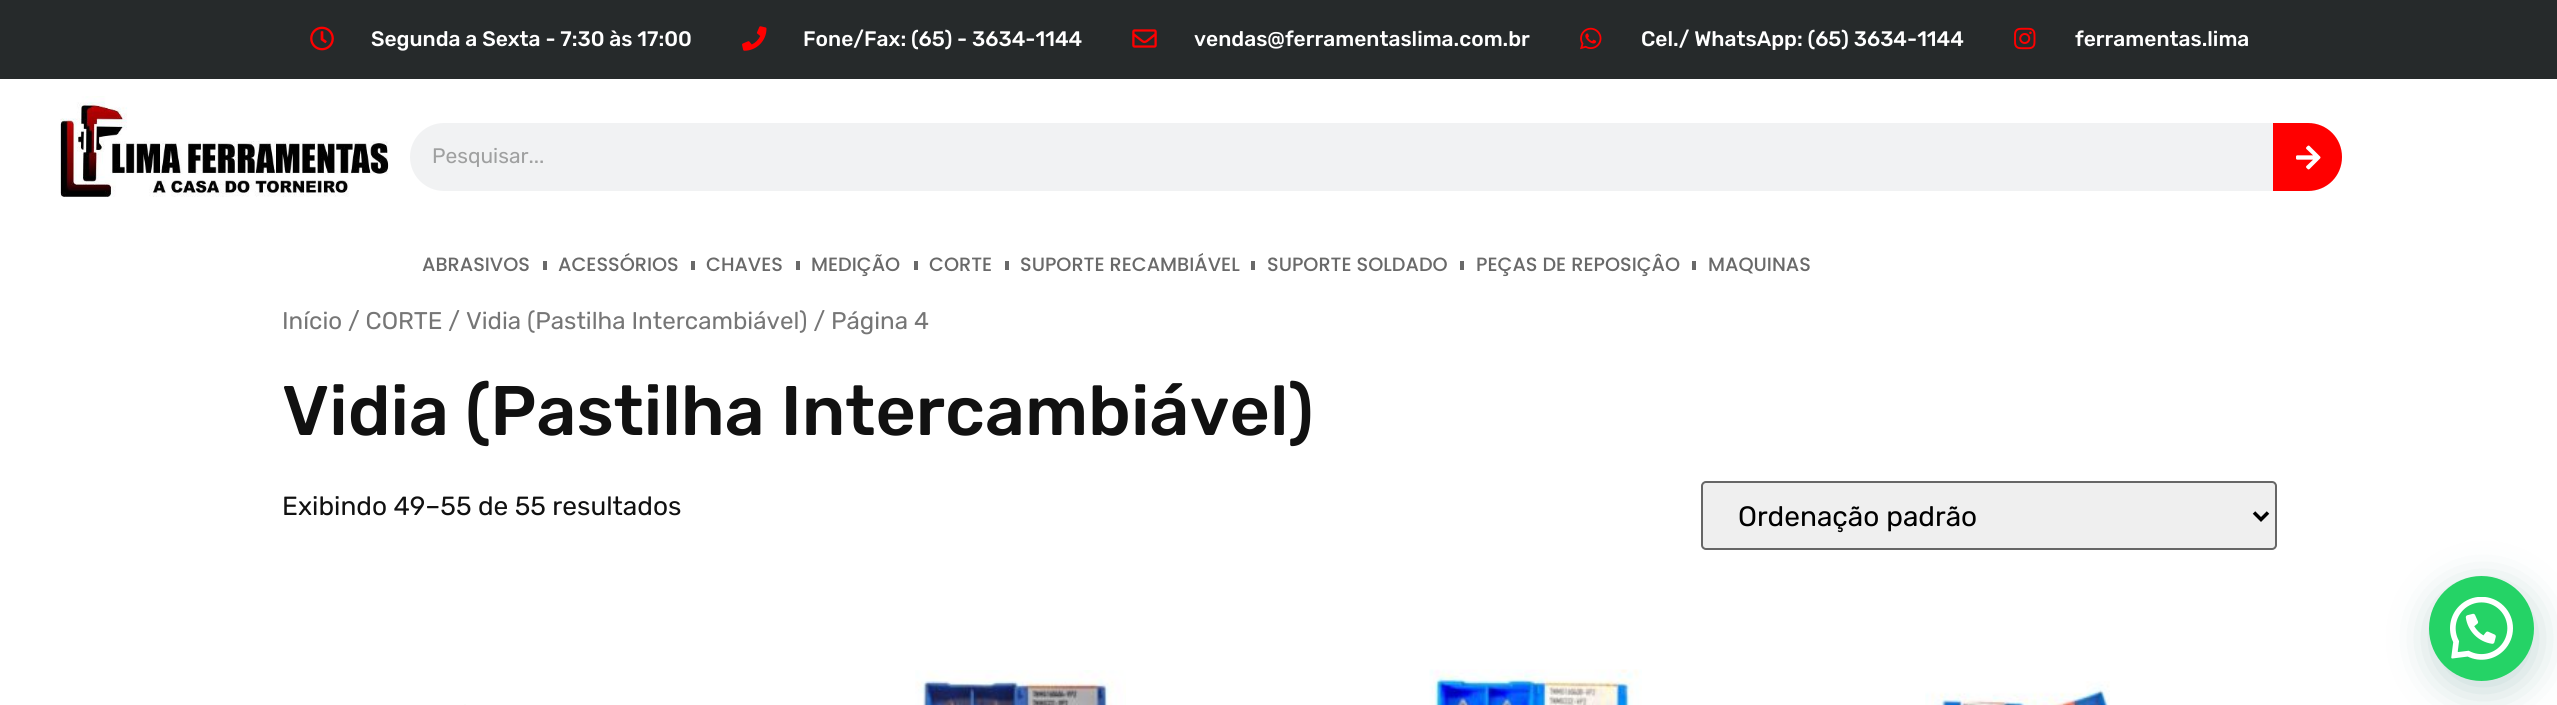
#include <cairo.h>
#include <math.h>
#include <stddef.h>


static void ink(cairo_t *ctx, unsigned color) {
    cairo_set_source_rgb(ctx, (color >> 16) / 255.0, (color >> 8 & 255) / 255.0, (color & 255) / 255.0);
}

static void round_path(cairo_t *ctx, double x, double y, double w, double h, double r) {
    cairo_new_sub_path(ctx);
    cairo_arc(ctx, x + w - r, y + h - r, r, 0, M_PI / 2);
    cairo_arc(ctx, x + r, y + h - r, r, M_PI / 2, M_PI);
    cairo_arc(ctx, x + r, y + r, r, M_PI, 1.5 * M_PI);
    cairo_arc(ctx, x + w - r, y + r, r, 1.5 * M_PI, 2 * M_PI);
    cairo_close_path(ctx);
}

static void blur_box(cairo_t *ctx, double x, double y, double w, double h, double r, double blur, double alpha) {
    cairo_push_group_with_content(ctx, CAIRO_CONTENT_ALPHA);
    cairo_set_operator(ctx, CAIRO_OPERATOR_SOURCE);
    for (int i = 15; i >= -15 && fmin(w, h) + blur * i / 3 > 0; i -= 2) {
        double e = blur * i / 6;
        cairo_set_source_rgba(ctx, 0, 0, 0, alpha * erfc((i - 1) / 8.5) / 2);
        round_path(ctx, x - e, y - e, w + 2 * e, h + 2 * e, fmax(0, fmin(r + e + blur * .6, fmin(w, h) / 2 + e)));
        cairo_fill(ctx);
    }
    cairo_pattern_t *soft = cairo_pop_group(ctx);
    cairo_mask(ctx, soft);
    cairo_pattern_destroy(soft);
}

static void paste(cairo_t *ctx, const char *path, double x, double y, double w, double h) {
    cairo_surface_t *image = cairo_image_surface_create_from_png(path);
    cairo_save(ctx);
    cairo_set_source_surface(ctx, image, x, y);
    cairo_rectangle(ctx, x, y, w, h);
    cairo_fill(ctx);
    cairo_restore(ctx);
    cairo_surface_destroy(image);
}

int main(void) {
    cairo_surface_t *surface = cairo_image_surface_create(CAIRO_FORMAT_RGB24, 2557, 705);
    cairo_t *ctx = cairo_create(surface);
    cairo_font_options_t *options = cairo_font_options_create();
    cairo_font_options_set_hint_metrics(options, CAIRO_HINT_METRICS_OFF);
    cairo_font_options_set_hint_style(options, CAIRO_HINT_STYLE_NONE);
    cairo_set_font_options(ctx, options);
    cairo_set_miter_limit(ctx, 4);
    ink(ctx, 0xFFFFFF);
    cairo_paint(ctx);
    ink(ctx, 0x262A2B);
    cairo_rectangle(ctx, 0, 0, 2557, 79);
    cairo_fill(ctx);
    paste(ctx, "media/1.png", 310, 26, 24, 25);
    cairo_select_font_face(ctx, "Rubik Medium", CAIRO_FONT_SLANT_NORMAL, CAIRO_FONT_WEIGHT_NORMAL);
    cairo_set_font_size(ctx, 21);
    ink(ctx, 0xFFFFFF);
    cairo_move_to(ctx, 371, 46);
    cairo_show_text(ctx, "Segunda a Sexta - 7:30 às 17:00");
    paste(ctx, "media/2.png", 742, 26, 25, 25);
    cairo_move_to(ctx, 803, 46);
    cairo_show_text(ctx, "Fone/Fax: (65) - 3634-1144");
    paste(ctx, "media/3.png", 1132, 29, 25, 19);
    cairo_move_to(ctx, 1194, 46);
    cairo_show_text(ctx, "vendas@ferramentaslima.com.br");
    paste(ctx, "media/4.png", 1580, 27, 22, 23);
    cairo_move_to(ctx, 1641, 46);
    cairo_show_text(ctx, "Cel./ WhatsApp: (65) 3634-1144");
    paste(ctx, "media/5.png", 2014, 27, 22, 23);
    cairo_move_to(ctx, 2075, 46);
    cairo_show_text(ctx, "ferramentas.lima");
    paste(ctx, "media/6.png", 60, 96, 330, 101);
    ink(ctx, 0xF1F2F3);
    round_path(ctx, 410, 123, 1932, 68, 34);
    cairo_fill(ctx);
    cairo_select_font_face(ctx, "Rubik", CAIRO_FONT_SLANT_NORMAL, CAIRO_FONT_WEIGHT_NORMAL);
    ink(ctx, 0x9FA0A0);
    cairo_move_to(ctx, 432, 163);
    cairo_show_text(ctx, "Pesquisar...");
    ink(ctx, 0xFF0000);
    cairo_new_path(ctx);
    cairo_move_to(ctx, 2273, 123);
    cairo_line_to(ctx, 2308, 123);
    cairo_curve_to(ctx, 2327, 123, 2342, 138, 2342, 157);
    cairo_curve_to(ctx, 2342, 176, 2327, 191, 2308, 191);
    cairo_line_to(ctx, 2273, 191);
    cairo_close_path(ctx);
    cairo_fill(ctx);
    paste(ctx, "media/7.png", 2296, 145, 25, 25);
    cairo_select_font_face(ctx, "Poppins Medium", CAIRO_FONT_SLANT_NORMAL, CAIRO_FONT_WEIGHT_NORMAL);
    cairo_set_font_size(ctx, 19.25);
    ink(ctx, 0x696969);
    cairo_move_to(ctx, 422, 271);
    cairo_show_text(ctx, "ABRASIVOS");
    cairo_rectangle(ctx, 543, 261, 4, 9);
    cairo_fill(ctx);
    cairo_move_to(ctx, 558, 271);
    cairo_show_text(ctx, "ACESSÓRIOS");
    cairo_rectangle(ctx, 691, 261, 4, 9);
    cairo_fill(ctx);
    cairo_move_to(ctx, 706, 271);
    cairo_show_text(ctx, "CHAVES");
    cairo_rectangle(ctx, 796, 261, 4, 9);
    cairo_fill(ctx);
    cairo_move_to(ctx, 811, 271);
    cairo_show_text(ctx, "MEDIÇÃO");
    cairo_rectangle(ctx, 914, 261, 4, 9);
    cairo_fill(ctx);
    cairo_move_to(ctx, 929, 271);
    cairo_show_text(ctx, "CORTE");
    cairo_rectangle(ctx, 1005, 261, 4, 9);
    cairo_fill(ctx);
    cairo_move_to(ctx, 1020, 271);
    cairo_show_text(ctx, "SUPORTE RECAMBIÁVEL");
    cairo_rectangle(ctx, 1251, 261, 4, 9);
    cairo_fill(ctx);
    cairo_move_to(ctx, 1267, 271);
    cairo_show_text(ctx, "SUPORTE SOLDADO");
    cairo_rectangle(ctx, 1460, 261, 4, 9);
    cairo_fill(ctx);
    cairo_move_to(ctx, 1476, 271);
    cairo_show_text(ctx, "PEÇAS DE REPOSIÇÂO");
    cairo_rectangle(ctx, 1692, 261, 4, 9);
    cairo_fill(ctx);
    cairo_move_to(ctx, 1708, 271);
    cairo_show_text(ctx, "MAQUINAS");
    cairo_select_font_face(ctx, "Rubik", CAIRO_FONT_SLANT_NORMAL, CAIRO_FONT_WEIGHT_NORMAL);
    cairo_set_font_size(ctx, 24.15);
    ink(ctx, 0x767676);
    cairo_move_to(ctx, 282, 329);
    cairo_show_text(ctx, "Início / CORTE / Vidia (Pastilha Intercambiável) / Página 4");
    cairo_select_font_face(ctx, "Rubik Medium", CAIRO_FONT_SLANT_NORMAL, CAIRO_FONT_WEIGHT_NORMAL);
    cairo_set_font_size(ctx, 70);
    ink(ctx, 0x111111);
    cairo_move_to(ctx, 282, 435);
    cairo_show_text(ctx, "Vidia (Pastilha Intercambiável)");
    cairo_select_font_face(ctx, "Rubik", CAIRO_FONT_SLANT_NORMAL, CAIRO_FONT_WEIGHT_NORMAL);
    cairo_set_font_size(ctx, 26.25);
    cairo_move_to(ctx, 282, 515);
    cairo_show_text(ctx, "Exibindo 49–55 de 55 resultados");
    ink(ctx, 0xEFEFEF);
    round_path(ctx, 1702, 482, 574, 67, 4);
    cairo_fill_preserve(ctx);
    ink(ctx, 0x666666);
    cairo_stroke(ctx);
    cairo_new_path(ctx);
    cairo_move_to(ctx, 2254, 512.5);
    cairo_line_to(ctx, 2261, 519.5);
    cairo_line_to(ctx, 2268, 512.5);
    ink(ctx, 0x000000);
    cairo_set_line_width(ctx, 3.5);
    cairo_stroke(ctx);
    cairo_set_font_size(ctx, 28);
    cairo_move_to(ctx, 1738, 526);
    cairo_show_text(ctx, "Ordenação padrão");
    ink(ctx, 0xFAFEFB);
    cairo_rectangle(ctx, 464, 704, 2, 1);
    cairo_fill(ctx);
    paste(ctx, "media/8.png", 915, 670, 211, 35);
    paste(ctx, "media/9.png", 1429, 669, 213, 36);
    paste(ctx, "media/10.png", 1925, 681, 185, 24);
    ink(ctx, 0x075E54);
    blur_box(ctx, 2431, 586, 105, 105, 52.5, 21, 0.24);
    ink(ctx, 0x25D366);
    cairo_arc(ctx, 2481.5, 628.5, 52.5, 0, 2 * M_PI);
    cairo_fill(ctx);
    paste(ctx, "media/11.png", 2450, 597, 63, 63);
    cairo_surface_write_to_png(surface, "image.png");
    cairo_font_options_destroy(options);
    cairo_destroy(ctx);
    cairo_surface_destroy(surface);
    return 0;
}
